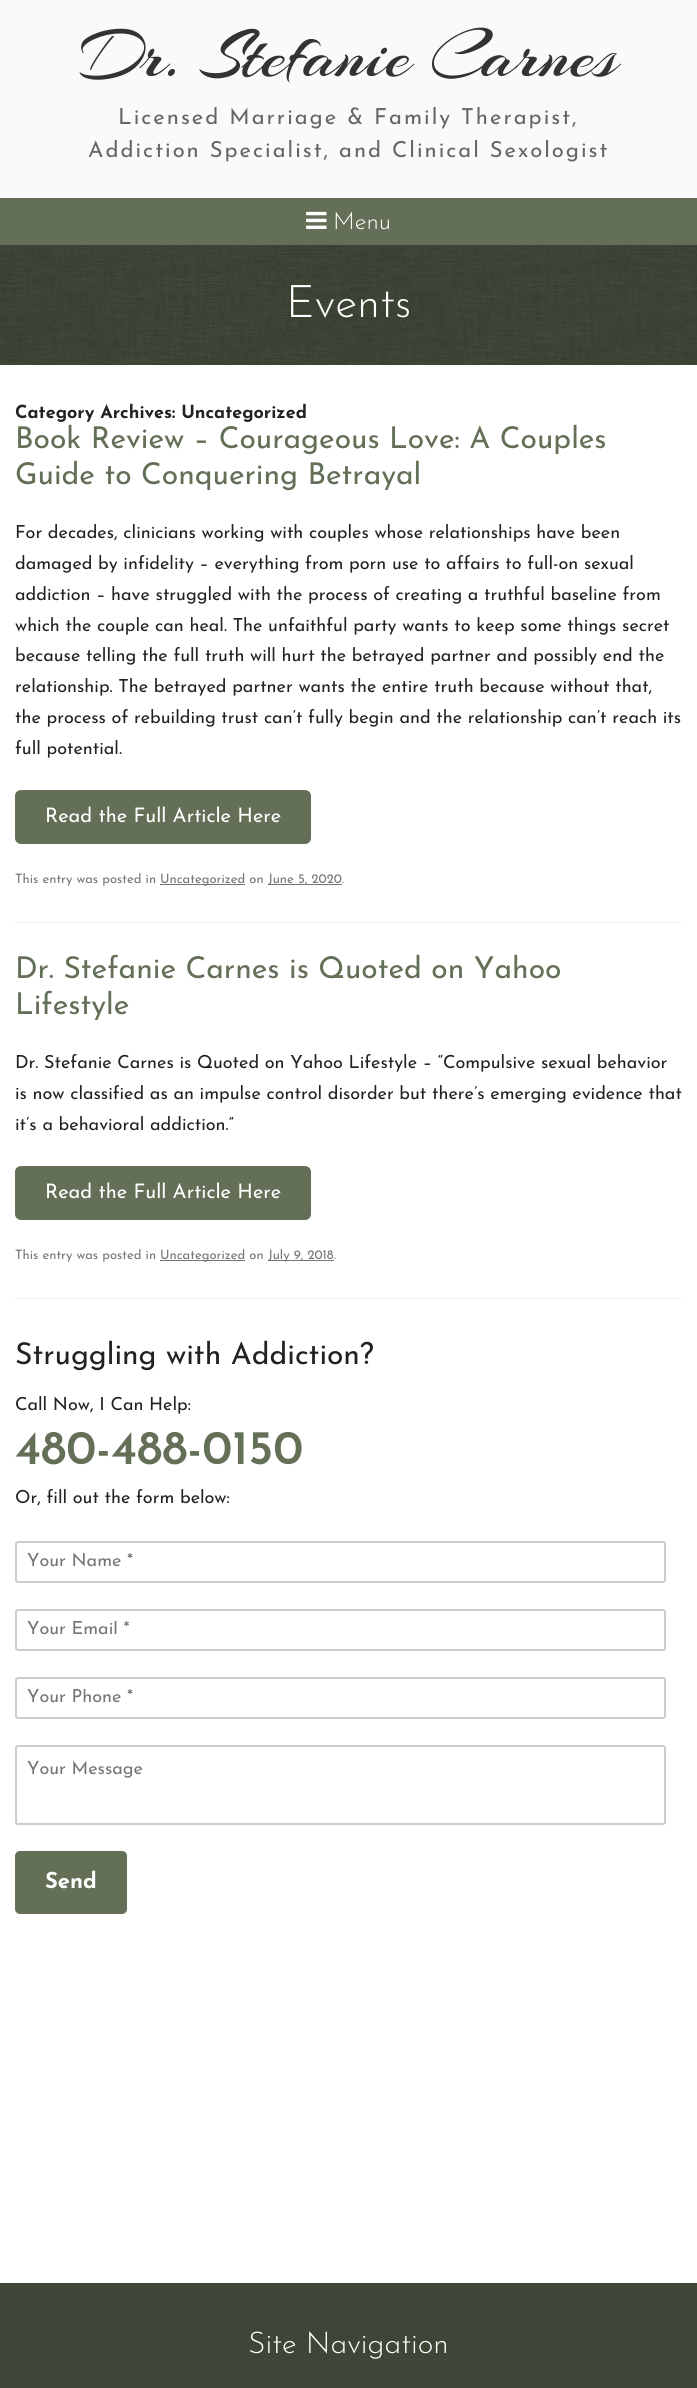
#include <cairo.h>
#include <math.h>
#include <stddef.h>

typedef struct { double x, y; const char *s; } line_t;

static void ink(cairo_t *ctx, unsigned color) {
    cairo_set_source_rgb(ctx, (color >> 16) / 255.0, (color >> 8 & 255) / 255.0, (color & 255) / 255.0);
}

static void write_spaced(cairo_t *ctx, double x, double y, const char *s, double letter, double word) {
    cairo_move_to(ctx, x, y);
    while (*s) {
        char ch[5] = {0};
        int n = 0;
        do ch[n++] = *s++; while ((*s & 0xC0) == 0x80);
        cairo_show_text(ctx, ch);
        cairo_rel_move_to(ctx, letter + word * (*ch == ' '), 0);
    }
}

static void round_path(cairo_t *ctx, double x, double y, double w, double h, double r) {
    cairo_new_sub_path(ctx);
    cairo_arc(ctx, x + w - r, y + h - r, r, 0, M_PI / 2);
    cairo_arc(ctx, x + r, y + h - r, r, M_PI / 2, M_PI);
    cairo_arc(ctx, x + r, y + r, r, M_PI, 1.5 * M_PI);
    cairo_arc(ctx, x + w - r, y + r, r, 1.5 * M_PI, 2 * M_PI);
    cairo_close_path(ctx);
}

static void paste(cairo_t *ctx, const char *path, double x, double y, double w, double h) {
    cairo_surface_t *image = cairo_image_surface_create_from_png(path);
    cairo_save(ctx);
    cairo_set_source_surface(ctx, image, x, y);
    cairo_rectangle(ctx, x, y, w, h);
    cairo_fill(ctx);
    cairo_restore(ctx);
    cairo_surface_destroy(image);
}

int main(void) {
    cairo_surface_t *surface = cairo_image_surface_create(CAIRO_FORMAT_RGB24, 697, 2388);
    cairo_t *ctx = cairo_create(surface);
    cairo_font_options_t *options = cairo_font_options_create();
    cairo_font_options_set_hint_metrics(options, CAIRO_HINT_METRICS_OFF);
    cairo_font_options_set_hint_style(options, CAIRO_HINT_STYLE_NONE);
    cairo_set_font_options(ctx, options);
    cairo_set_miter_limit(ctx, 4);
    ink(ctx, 0xFFFFFF);
    cairo_paint(ctx);
    ink(ctx, 0xFAFAFA);
    cairo_rectangle(ctx, 0, 0, 697, 198);
    cairo_fill(ctx);
    cairo_select_font_face(ctx, "Arizonia", CAIRO_FONT_SLANT_NORMAL, CAIRO_FONT_WEIGHT_NORMAL);
    cairo_set_font_size(ctx, 72);
    ink(ctx, 0x333333);
    cairo_move_to(ctx, 80, 76);
    cairo_show_text(ctx, "Dr. Stefanie Carnes");
    cairo_select_font_face(ctx, "Josefin Sans", CAIRO_FONT_SLANT_NORMAL, CAIRO_FONT_WEIGHT_NORMAL);
    cairo_set_font_size(ctx, 22);
    ink(ctx, 0x666666);
    write_spaced(ctx, 118, 124, "Licensed Marriage & Family Therapist,", 2, 0);
    write_spaced(ctx, 88, 157, "Addiction Specialist, and Clinical Sexologist", 2, 0);
    ink(ctx, 0x636F57);
    cairo_rectangle(ctx, 0, 198, 697, 47);
    cairo_fill(ctx);
    paste(ctx, "media/1.png", 306, 211, 21, 18);
    cairo_select_font_face(ctx, "Josefin Sans Light", CAIRO_FONT_SLANT_NORMAL, CAIRO_FONT_WEIGHT_NORMAL);
    cairo_set_font_size(ctx, 24);
    ink(ctx, 0xFFFFFF);
    cairo_move_to(ctx, 333, 229);
    cairo_show_text(ctx, "Menu");
    paste(ctx, "media/2.png", 0, 245, 697, 120);
    cairo_set_font_size(ctx, 45);
    cairo_move_to(ctx, 286, 317);
    cairo_show_text(ctx, "Events");
    cairo_select_font_face(ctx, "Josefin Sans", CAIRO_FONT_SLANT_NORMAL, CAIRO_FONT_WEIGHT_BOLD);
    cairo_set_font_size(ctx, 18);
    ink(ctx, 0x222222);
    cairo_move_to(ctx, 15, 418);
    cairo_show_text(ctx, "Category Archives: Uncategorized");
    cairo_select_font_face(ctx, "Josefin Sans", CAIRO_FONT_SLANT_NORMAL, CAIRO_FONT_WEIGHT_NORMAL);
    cairo_set_font_size(ctx, 30);
    ink(ctx, 0x636F57);
    cairo_move_to(ctx, 15, 448);
    cairo_show_text(ctx, "Book Review – Courageous Love: A Couples");
    cairo_move_to(ctx, 15, 484);
    cairo_show_text(ctx, "Guide to Conquering Betrayal");
    cairo_set_font_size(ctx, 18);
    ink(ctx, 0x222222);
    {
        static const line_t items[] = {
            {15, 538, "For decades, clinicians working with couples whose relationships have been"},
            {15, 569, "damaged by infidelity – everything from porn use to affairs to full-on sexual"},
            {15, 600, "addiction – have struggled with the process of creating a truthful baseline from"},
            {15, 631, "which the couple can heal. The unfaithful party wants to keep some things secret"},
            {15, 661, "because telling the full truth will hurt the betrayed partner and possibly end the"},
            {15, 692, "relationship. The betrayed partner wants the entire truth because without that,"},
            {15, 723, "the process of rebuilding trust can’t fully begin and the relationship can’t reach its"},
            {15, 754, "full potential."},
        };
        for (size_t i = 0; i < sizeof items / sizeof *items; i++) {
            cairo_move_to(ctx, items[i].x, items[i].y);
            cairo_show_text(ctx, items[i].s);
        }
    }
    ink(ctx, 0x636F57);
    round_path(ctx, 15, 790, 296, 54, 6);
    cairo_fill(ctx);
    cairo_set_font_size(ctx, 20);
    ink(ctx, 0xFFFFFF);
    cairo_move_to(ctx, 45, 822);
    cairo_show_text(ctx, "Read the Full Article Here");
    ink(ctx, 0xEEEEEE);
    cairo_rectangle(ctx, 15, 922, 667, 1);
    cairo_fill(ctx);
    cairo_set_font_size(ctx, 13);
    ink(ctx, 0x757575);
    cairo_move_to(ctx, 15, 883);
    cairo_show_text(ctx, "This entry was posted in");
    cairo_rectangle(ctx, 160, 884, 85, 1);
    cairo_fill(ctx);
    cairo_move_to(ctx, 160, 883);
    cairo_show_text(ctx, "Uncategorized on");
    cairo_rectangle(ctx, 268, 884, 74, 1);
    cairo_fill(ctx);
    cairo_move_to(ctx, 268, 883);
    cairo_show_text(ctx, "June 5, 2020.");
    cairo_set_font_size(ctx, 30);
    ink(ctx, 0x636F57);
    cairo_move_to(ctx, 15, 978);
    cairo_show_text(ctx, "Dr. Stefanie Carnes is Quoted on Yahoo");
    cairo_move_to(ctx, 15, 1014);
    cairo_show_text(ctx, "Lifestyle");
    cairo_set_font_size(ctx, 18);
    ink(ctx, 0x222222);
    {
        static const line_t items[] = {
            {15, 1068, "Dr. Stefanie Carnes is Quoted on Yahoo Lifestyle – “Compulsive sexual behavior"},
            {15, 1099, "is now classified as an impulse control disorder but there’s emerging evidence that"},
            {15, 1130, "it’s a behavioral addiction.”"},
        };
        for (size_t i = 0; i < sizeof items / sizeof *items; i++) {
            cairo_move_to(ctx, items[i].x, items[i].y);
            cairo_show_text(ctx, items[i].s);
        }
    }
    ink(ctx, 0x636F57);
    round_path(ctx, 15, 1166, 296, 54, 6);
    cairo_fill(ctx);
    cairo_set_font_size(ctx, 20);
    ink(ctx, 0xFFFFFF);
    cairo_move_to(ctx, 45, 1198);
    cairo_show_text(ctx, "Read the Full Article Here");
    ink(ctx, 0xEEEEEE);
    cairo_rectangle(ctx, 15, 1298, 667, 1);
    cairo_fill(ctx);
    cairo_set_font_size(ctx, 13);
    ink(ctx, 0x757575);
    cairo_move_to(ctx, 15, 1259);
    cairo_show_text(ctx, "This entry was posted in");
    cairo_rectangle(ctx, 160, 1260, 85, 1);
    cairo_fill(ctx);
    cairo_move_to(ctx, 160, 1259);
    cairo_show_text(ctx, "Uncategorized on");
    cairo_rectangle(ctx, 268, 1260, 66, 1);
    cairo_fill(ctx);
    cairo_move_to(ctx, 268, 1259);
    cairo_show_text(ctx, "July 9, 2018.");
    cairo_set_font_size(ctx, 30);
    ink(ctx, 0x222222);
    cairo_move_to(ctx, 15, 1364);
    cairo_show_text(ctx, "Struggling with Addiction?");
    cairo_set_font_size(ctx, 18);
    cairo_move_to(ctx, 15, 1410);
    cairo_show_text(ctx, "Call Now, I Can Help:");
    cairo_select_font_face(ctx, "Josefin Sans SemiBold", CAIRO_FONT_SLANT_NORMAL, CAIRO_FONT_WEIGHT_NORMAL);
    cairo_set_font_size(ctx, 48);
    ink(ctx, 0x636F57);
    cairo_move_to(ctx, 15, 1464);
    cairo_show_text(ctx, "480-488-0150");
    cairo_select_font_face(ctx, "Josefin Sans", CAIRO_FONT_SLANT_NORMAL, CAIRO_FONT_WEIGHT_NORMAL);
    cairo_set_font_size(ctx, 18);
    ink(ctx, 0x222222);
    cairo_move_to(ctx, 15, 1503);
    cairo_show_text(ctx, "Or, fill out the form below:");
    round_path(ctx, 16, 1542, 649, 40, 2);
    ink(ctx, 0xCCCCCC);
    cairo_stroke(ctx);
    ink(ctx, 0x757575);
    cairo_move_to(ctx, 27, 1566);
    cairo_show_text(ctx, "Your Name *");
    round_path(ctx, 16, 1610, 649, 40, 2);
    ink(ctx, 0xCCCCCC);
    cairo_stroke(ctx);
    cairo_save(ctx);
    cairo_rectangle(ctx, 27, 1621, 627, 18);
    cairo_clip(ctx);
    ink(ctx, 0x757575);
    cairo_move_to(ctx, 27, 1634);
    cairo_show_text(ctx, "Your Email *");
    cairo_restore(ctx);
    round_path(ctx, 16, 1678, 649, 40, 2);
    cairo_stroke(ctx);
    cairo_save(ctx);
    cairo_rectangle(ctx, 27, 1689, 627, 18);
    cairo_clip(ctx);
    ink(ctx, 0x757575);
    cairo_move_to(ctx, 27, 1702);
    cairo_show_text(ctx, "Your Phone *");
    cairo_restore(ctx);
    round_path(ctx, 16, 1746, 649, 78, 2);
    cairo_stroke(ctx);
    ink(ctx, 0x757575);
    cairo_move_to(ctx, 27, 1774);
    cairo_show_text(ctx, "Your Message");
    ink(ctx, 0x636F57);
    round_path(ctx, 15, 1851, 112, 63, 5);
    cairo_fill(ctx);
    cairo_select_font_face(ctx, "Josefin Sans", CAIRO_FONT_SLANT_NORMAL, CAIRO_FONT_WEIGHT_BOLD);
    cairo_set_font_size(ctx, 22);
    ink(ctx, 0xFFFFFF);
    cairo_move_to(ctx, 45, 1888);
    cairo_show_text(ctx, "Send");
    ink(ctx, 0x3F4638);
    cairo_rectangle(ctx, 0, 2283, 697, 105);
    cairo_fill(ctx);
    cairo_select_font_face(ctx, "Josefin Sans Light", CAIRO_FONT_SLANT_NORMAL, CAIRO_FONT_WEIGHT_NORMAL);
    cairo_set_font_size(ctx, 30);
    ink(ctx, 0xFFFFFF);
    cairo_move_to(ctx, 248, 2353);
    cairo_show_text(ctx, "Site Navigation");
    cairo_surface_write_to_png(surface, "image.png");
    cairo_font_options_destroy(options);
    cairo_destroy(ctx);
    cairo_surface_destroy(surface);
    return 0;
}
